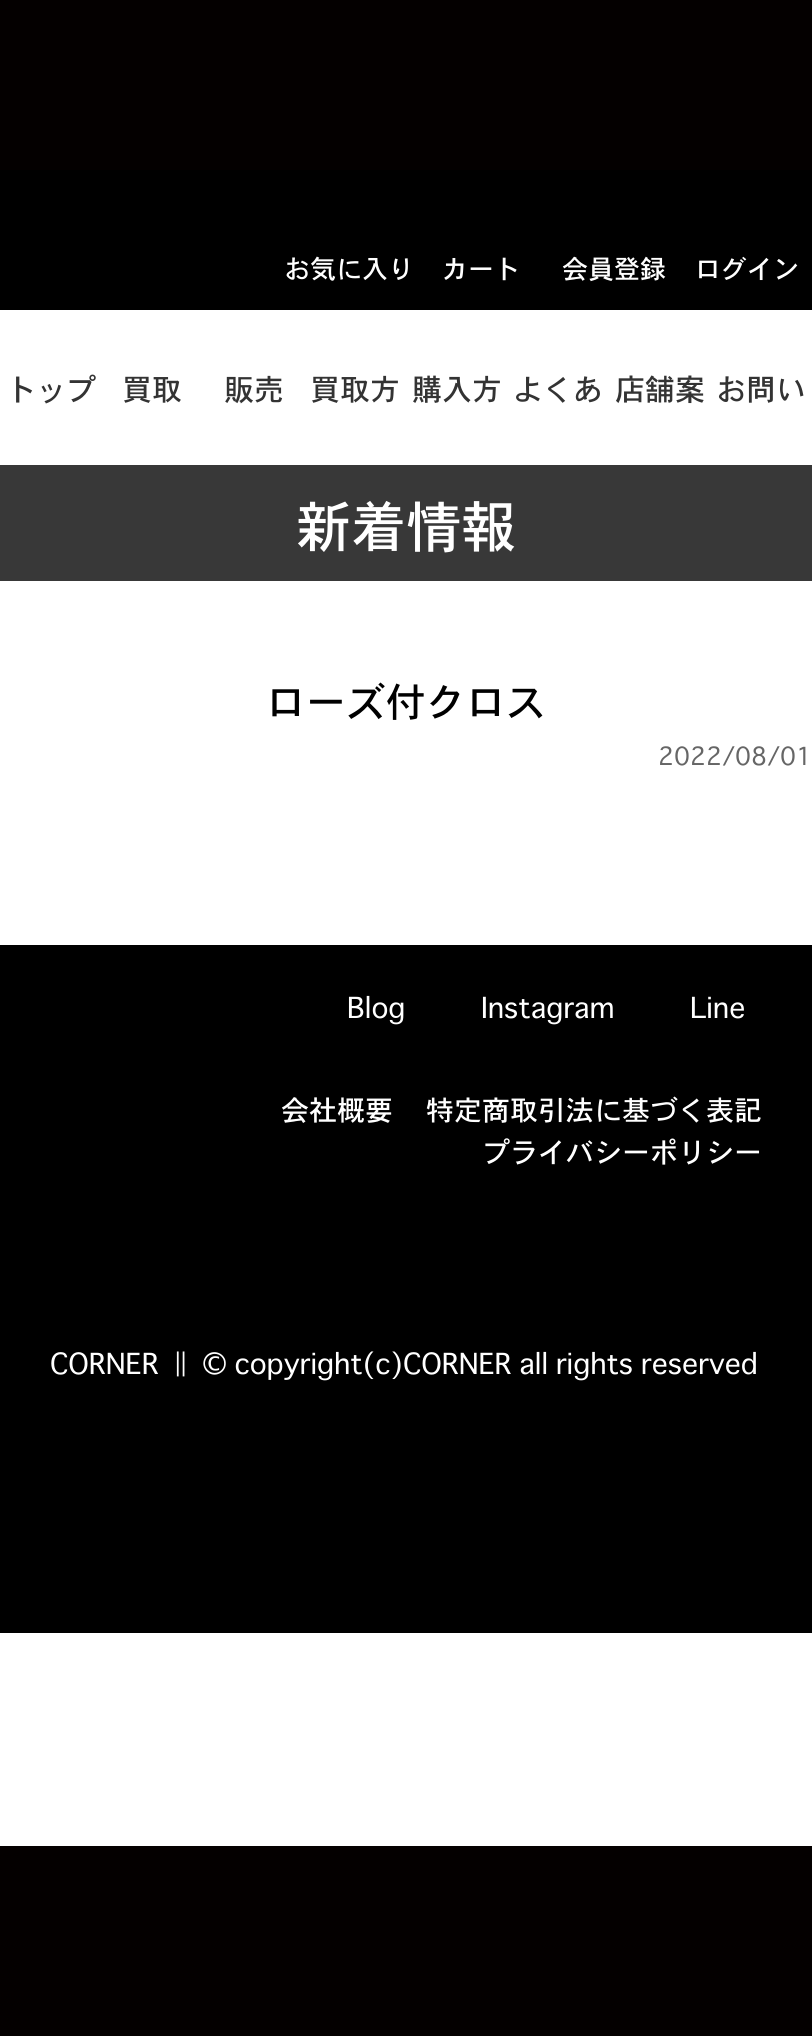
#include <cairo.h>
#include <math.h>
#include <stddef.h>

typedef struct { double x, y; const char *s; } line_t;

static void ink(cairo_t *ctx, unsigned color) {
    cairo_set_source_rgb(ctx, (color >> 16) / 255.0, (color >> 8 & 255) / 255.0, (color & 255) / 255.0);
}

int main(void) {
    cairo_surface_t *surface = cairo_image_surface_create(CAIRO_FORMAT_RGB24, 812, 2036);
    cairo_t *ctx = cairo_create(surface);
    cairo_font_options_t *options = cairo_font_options_create();
    cairo_font_options_set_hint_metrics(options, CAIRO_HINT_METRICS_OFF);
    cairo_font_options_set_hint_style(options, CAIRO_HINT_STYLE_NONE);
    cairo_set_font_options(ctx, options);
    cairo_set_miter_limit(ctx, 4);
    ink(ctx, 0xFFFFFF);
    cairo_paint(ctx);
    ink(ctx, 0x040000);
    cairo_rectangle(ctx, 0, 0, 812, 170);
    cairo_fill(ctx);
    ink(ctx, 0x000000);
    cairo_rectangle(ctx, 0, 170, 812, 140);
    cairo_fill(ctx);
    cairo_select_font_face(ctx, "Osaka", CAIRO_FONT_SLANT_NORMAL, CAIRO_FONT_WEIGHT_NORMAL);
    cairo_set_font_size(ctx, 26);
    ink(ctx, 0xFFFFFF);
    {
        static const line_t items[] = {
            {284, 278, "お気に入り"},
            {442, 278, "カート"},
            {562, 278, "会員登録"},
            {695, 278, "ログイン"},
        };
        for (size_t i = 0; i < sizeof items / sizeof *items; i++) {
            cairo_move_to(ctx, items[i].x, items[i].y);
            cairo_show_text(ctx, items[i].s);
        }
    }
    cairo_set_font_size(ctx, 30);
    ink(ctx, 0x333333);
    {
        static const line_t items[] = {
            {6, 400, "トップ"},
            {122, 400, "買取"},
            {224, 400, "販売"},
            {310, 400, "買取方"},
            {412, 400, "購入方"},
            {513, 400, "よくあ"},
            {615, 400, "店舗案"},
            {716, 400, "お問い"},
        };
        for (size_t i = 0; i < sizeof items / sizeof *items; i++) {
            cairo_move_to(ctx, items[i].x, items[i].y);
            cairo_show_text(ctx, items[i].s);
        }
    }
    ink(ctx, 0x383838);
    cairo_rectangle(ctx, 0, 465, 812, 116);
    cairo_fill(ctx);
    cairo_set_font_size(ctx, 55);
    ink(ctx, 0xFFFFFF);
    cairo_move_to(ctx, 296, 546);
    cairo_show_text(ctx, "新着情報");
    cairo_set_font_size(ctx, 40);
    ink(ctx, 0x000000);
    cairo_move_to(ctx, 266, 716);
    cairo_show_text(ctx, "ローズ付クロス");
    cairo_set_font_size(ctx, 24);
    ink(ctx, 0x666666);
    cairo_move_to(ctx, 658, 765);
    cairo_show_text(ctx, "2022/08/01");
    ink(ctx, 0x000000);
    cairo_rectangle(ctx, 0, 945, 812, 688);
    cairo_fill(ctx);
    cairo_set_font_size(ctx, 28);
    ink(ctx, 0xFFFFFF);
    {
        static const line_t items[] = {
            {347, 1018, "Blog"},
            {481, 1018, "Instagram"},
            {690, 1018, "Line"},
            {281, 1120, "会社概要"},
            {426, 1120, "特定商取引法に基づく表記"},
            {482, 1162, "プライバシーポリシー"},
            {50, 1374, "CORNER ‖ © copyright(c)CORNER all rights reserved"},
        };
        for (size_t i = 0; i < sizeof items / sizeof *items; i++) {
            cairo_move_to(ctx, items[i].x, items[i].y);
            cairo_show_text(ctx, items[i].s);
        }
    }
    ink(ctx, 0x040000);
    cairo_rectangle(ctx, 0, 1846, 812, 190);
    cairo_fill(ctx);
    cairo_surface_write_to_png(surface, "image.png");
    cairo_font_options_destroy(options);
    cairo_destroy(ctx);
    cairo_surface_destroy(surface);
    return 0;
}
